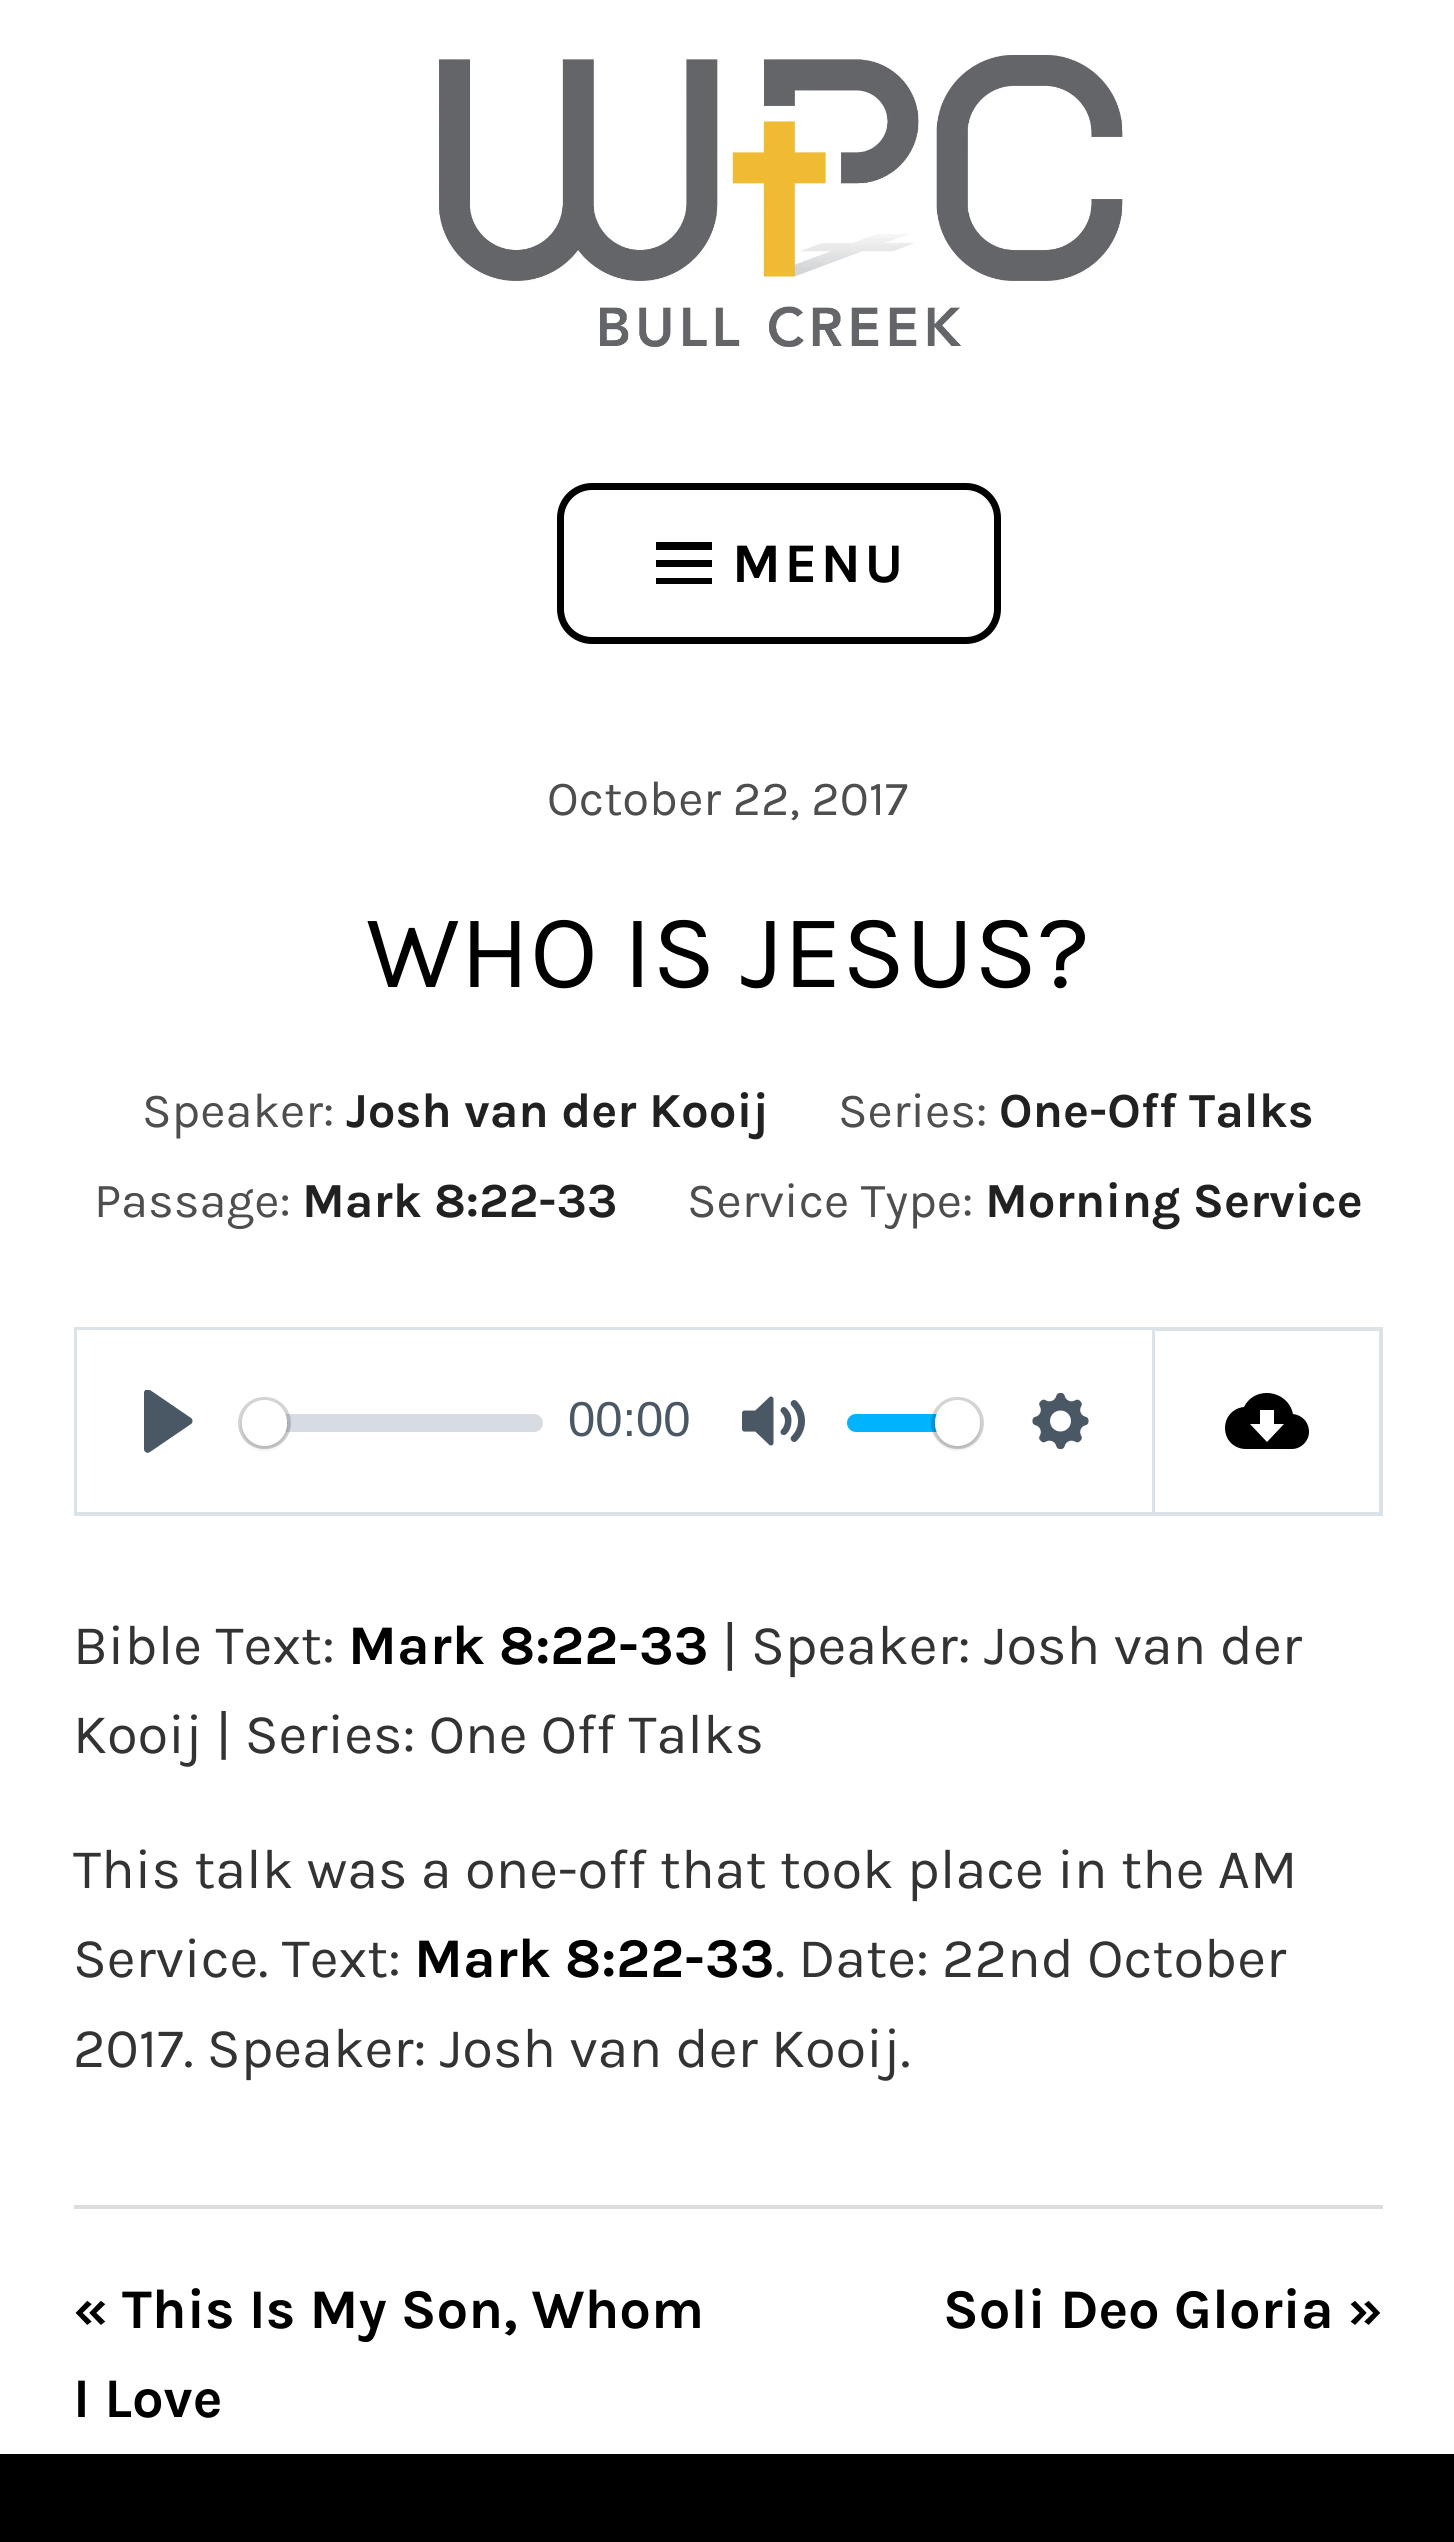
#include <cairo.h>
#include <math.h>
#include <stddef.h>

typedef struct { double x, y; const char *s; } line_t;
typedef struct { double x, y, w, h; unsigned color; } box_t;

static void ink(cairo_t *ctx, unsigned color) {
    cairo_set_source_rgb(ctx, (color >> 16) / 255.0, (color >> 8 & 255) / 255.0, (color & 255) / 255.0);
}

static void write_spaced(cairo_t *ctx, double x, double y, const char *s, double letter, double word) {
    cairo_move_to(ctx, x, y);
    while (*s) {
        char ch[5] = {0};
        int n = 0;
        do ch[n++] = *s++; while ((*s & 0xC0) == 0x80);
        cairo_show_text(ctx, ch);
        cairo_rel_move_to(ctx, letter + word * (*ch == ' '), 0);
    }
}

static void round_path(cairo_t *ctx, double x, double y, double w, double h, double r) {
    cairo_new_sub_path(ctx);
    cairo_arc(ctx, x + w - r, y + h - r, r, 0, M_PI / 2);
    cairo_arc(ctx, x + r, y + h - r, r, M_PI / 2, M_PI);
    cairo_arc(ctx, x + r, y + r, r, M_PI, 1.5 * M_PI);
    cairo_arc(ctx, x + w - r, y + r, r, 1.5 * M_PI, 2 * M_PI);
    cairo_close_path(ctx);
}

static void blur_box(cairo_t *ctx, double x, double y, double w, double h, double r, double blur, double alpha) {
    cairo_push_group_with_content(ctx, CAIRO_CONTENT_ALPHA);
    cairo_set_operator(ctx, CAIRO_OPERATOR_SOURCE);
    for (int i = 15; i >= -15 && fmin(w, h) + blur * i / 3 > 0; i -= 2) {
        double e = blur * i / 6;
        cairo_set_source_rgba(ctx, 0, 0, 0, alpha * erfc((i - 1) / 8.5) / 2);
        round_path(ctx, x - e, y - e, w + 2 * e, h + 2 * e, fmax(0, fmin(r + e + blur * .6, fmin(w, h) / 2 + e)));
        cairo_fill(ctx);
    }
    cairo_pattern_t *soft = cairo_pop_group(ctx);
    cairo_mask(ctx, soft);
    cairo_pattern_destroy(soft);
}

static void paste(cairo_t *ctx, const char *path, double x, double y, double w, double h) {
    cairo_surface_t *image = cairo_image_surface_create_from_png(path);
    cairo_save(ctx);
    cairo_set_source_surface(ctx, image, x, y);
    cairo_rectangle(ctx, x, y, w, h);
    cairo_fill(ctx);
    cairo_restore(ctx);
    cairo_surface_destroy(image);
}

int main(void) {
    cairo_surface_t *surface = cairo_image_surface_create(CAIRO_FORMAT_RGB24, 1454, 2542);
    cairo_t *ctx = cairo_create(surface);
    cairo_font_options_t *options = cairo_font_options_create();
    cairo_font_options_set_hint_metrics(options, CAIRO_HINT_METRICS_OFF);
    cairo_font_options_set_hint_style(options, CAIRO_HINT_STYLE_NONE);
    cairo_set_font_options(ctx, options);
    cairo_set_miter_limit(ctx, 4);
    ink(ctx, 0xFFFFFF);
    cairo_paint(ctx);
    paste(ctx, "media/1.png", 438, 54, 685, 293);
    round_path(ctx, 560.5, 486.5, 437, 154, 31.5);
    ink(ctx, 0x000000);
    cairo_set_line_width(ctx, 7);
    cairo_stroke(ctx);
    cairo_new_path(ctx);
    cairo_move_to(ctx, 656, 584);
    cairo_line_to(ctx, 656, 578);
    cairo_line_to(ctx, 712, 578);
    cairo_line_to(ctx, 712, 584);
    cairo_close_path(ctx);
    cairo_move_to(ctx, 656, 542);
    cairo_line_to(ctx, 712, 542);
    cairo_line_to(ctx, 712, 550);
    cairo_line_to(ctx, 656, 550);
    cairo_close_path(ctx);
    cairo_move_to(ctx, 656, 567);
    cairo_line_to(ctx, 656, 560);
    cairo_line_to(ctx, 712, 560);
    cairo_line_to(ctx, 712, 567);
    cairo_close_path(ctx);
    cairo_fill(ctx);
    cairo_select_font_face(ctx, "Karla", CAIRO_FONT_SLANT_NORMAL, CAIRO_FONT_WEIGHT_BOLD);
    cairo_set_font_size(ctx, 56);
    write_spaced(ctx, 732, 582, "MENU", 3.5, 0);
    cairo_select_font_face(ctx, "Karla", CAIRO_FONT_SLANT_NORMAL, CAIRO_FONT_WEIGHT_NORMAL);
    cairo_set_font_size(ctx, 49);
    ink(ctx, 0x4E4E4E);
    cairo_move_to(ctx, 547, 815);
    cairo_show_text(ctx, "October 22, 2017");
    cairo_set_font_size(ctx, 105);
    ink(ctx, 0x000000);
    cairo_move_to(ctx, 366, 987);
    cairo_show_text(ctx, "WHO IS JESUS?");
    cairo_set_font_size(ctx, 49);
    ink(ctx, 0x4E4E4E);
    cairo_move_to(ctx, 142, 1127);
    cairo_show_text(ctx, "Speaker:");
    cairo_select_font_face(ctx, "Karla", CAIRO_FONT_SLANT_NORMAL, CAIRO_FONT_WEIGHT_BOLD);
    ink(ctx, 0x212121);
    cairo_move_to(ctx, 346, 1127);
    cairo_show_text(ctx, "Josh van der Kooij");
    cairo_select_font_face(ctx, "Karla", CAIRO_FONT_SLANT_NORMAL, CAIRO_FONT_WEIGHT_NORMAL);
    ink(ctx, 0x4E4E4E);
    cairo_move_to(ctx, 838, 1127);
    cairo_show_text(ctx, "Series:");
    cairo_select_font_face(ctx, "Karla", CAIRO_FONT_SLANT_NORMAL, CAIRO_FONT_WEIGHT_BOLD);
    ink(ctx, 0x212121);
    cairo_move_to(ctx, 999, 1127);
    cairo_show_text(ctx, "One-Off Talks");
    cairo_select_font_face(ctx, "Karla", CAIRO_FONT_SLANT_NORMAL, CAIRO_FONT_WEIGHT_NORMAL);
    ink(ctx, 0x4E4E4E);
    cairo_move_to(ctx, 94, 1217);
    cairo_show_text(ctx, "Passage:");
    cairo_select_font_face(ctx, "Karla", CAIRO_FONT_SLANT_NORMAL, CAIRO_FONT_WEIGHT_BOLD);
    ink(ctx, 0x212121);
    cairo_move_to(ctx, 302, 1217);
    cairo_show_text(ctx, "Mark 8:22-33");
    cairo_select_font_face(ctx, "Karla", CAIRO_FONT_SLANT_NORMAL, CAIRO_FONT_WEIGHT_NORMAL);
    ink(ctx, 0x4E4E4E);
    cairo_move_to(ctx, 687, 1217);
    cairo_show_text(ctx, "Service Type:");
    cairo_select_font_face(ctx, "Karla", CAIRO_FONT_SLANT_NORMAL, CAIRO_FONT_WEIGHT_BOLD);
    ink(ctx, 0x212121);
    cairo_move_to(ctx, 985, 1217);
    cairo_show_text(ctx, "Morning Service");
    cairo_rectangle(ctx, 76, 1329, 1077, 185);
    ink(ctx, 0xDBE3E8);
    cairo_set_line_width(ctx, 4);
    cairo_stroke(ctx);
    ink(ctx, 0xFFFFFF);
    cairo_rectangle(ctx, 77, 1330, 1075, 182);
    cairo_fill(ctx);
    cairo_save(ctx);
    cairo_rectangle(ctx, 137, 1390, 63, 63);
    cairo_clip(ctx);
    ink(ctx, 0x4A5764);
    cairo_new_path(ctx);
    cairo_move_to(ctx, 191, 1418);
    cairo_line_to(ctx, 150, 1390);
    cairo_curve_to(ctx, 147, 1388, 144, 1390, 144, 1393);
    cairo_line_to(ctx, 144, 1449);
    cairo_curve_to(ctx, 144, 1452, 147, 1454, 150, 1452);
    cairo_line_to(ctx, 191, 1424);
    cairo_curve_to(ctx, 193, 1423, 193, 1419, 191, 1418);
    cairo_close_path(ctx);
    cairo_fill(ctx);
    cairo_restore(ctx);
    cairo_set_source_rgba(ctx, 0.757, 0.788, 0.82, 0.66);
    round_path(ctx, 242, 1414, 301, 18, 9);
    cairo_fill(ctx);
    round_path(ctx, 240, 1399, 49, 48, 24);
    cairo_set_source_rgba(ctx, 0.137, 0.161, 0.184, 0.2);
    cairo_stroke(ctx);
    ink(ctx, 0x000000);
    blur_box(ctx, 242, 1404, 45, 45, 22.5, 2, 0.15);
    ink(ctx, 0xFFFFFF);
    round_path(ctx, 242, 1400, 45, 46, 22.5);
    cairo_fill(ctx);
    cairo_select_font_face(ctx, "Liberation Sans", CAIRO_FONT_SLANT_NORMAL, CAIRO_FONT_WEIGHT_NORMAL);
    ink(ctx, 0x4A5764);
    cairo_move_to(ctx, 568, 1436);
    cairo_show_text(ctx, "00:00");
    paste(ctx, "media/2.png", 742, 1396, 63, 50);
    ink(ctx, 0x00B3FF);
    round_path(ctx, 847, 1414, 133, 18, 9);
    cairo_fill(ctx);
    round_path(ctx, 933, 1399, 49, 48, 24);
    cairo_set_source_rgba(ctx, 0.137, 0.161, 0.184, 0.2);
    cairo_stroke(ctx);
    ink(ctx, 0x000000);
    blur_box(ctx, 935, 1404, 45, 45, 22.5, 2, 0.15);
    ink(ctx, 0xFFFFFF);
    round_path(ctx, 935, 1400, 45, 46, 22.5);
    cairo_fill(ctx);
    paste(ctx, "media/3.png", 1032, 1393, 57, 56);
    {
        static const box_t items[] = {
            {1155, 1327, 228, 4, 0xDBE3E8},
            {1379, 1327, 4, 189, 0xDBE3E8},
            {1155, 1512, 228, 4, 0xDBE3E8},
        };
        for (size_t i = 0; i < sizeof items / sizeof *items; i++) {
            ink(ctx, items[i].color);
            cairo_rectangle(ctx, items[i].x, items[i].y, items[i].w, items[i].h);
            cairo_fill(ctx);
        }
    }
    ink(ctx, 0x000000);
    cairo_new_path(ctx);
    cairo_move_to(ctx, 1293, 1414);
    cairo_curve_to(ctx, 1288, 1390, 1255, 1385, 1244, 1407);
    cairo_curve_to(ctx, 1233, 1408, 1225, 1417, 1225, 1428);
    cairo_curve_to(ctx, 1225, 1440, 1234, 1449, 1246, 1449);
    cairo_line_to(ctx, 1292, 1449);
    cairo_curve_to(ctx, 1301, 1449, 1309, 1441, 1309, 1432);
    cairo_curve_to(ctx, 1309, 1422, 1302, 1415, 1293, 1414);
    cairo_close_path(ctx);
    cairo_move_to(ctx, 1284, 1424);
    cairo_line_to(ctx, 1267, 1442);
    cairo_line_to(ctx, 1250, 1424);
    cairo_line_to(ctx, 1260, 1424);
    cairo_line_to(ctx, 1260, 1410);
    cairo_line_to(ctx, 1274, 1410);
    cairo_line_to(ctx, 1274, 1424);
    cairo_close_path(ctx);
    cairo_fill(ctx);
    cairo_select_font_face(ctx, "Karla", CAIRO_FONT_SLANT_NORMAL, CAIRO_FONT_WEIGHT_NORMAL);
    cairo_set_font_size(ctx, 56);
    ink(ctx, 0x333333);
    cairo_move_to(ctx, 73, 1664);
    cairo_show_text(ctx, "Bible Text:");
    cairo_select_font_face(ctx, "Karla", CAIRO_FONT_SLANT_NORMAL, CAIRO_FONT_WEIGHT_BOLD);
    ink(ctx, 0x000000);
    cairo_move_to(ctx, 348, 1664);
    cairo_show_text(ctx, "Mark 8:22-33");
    cairo_select_font_face(ctx, "Karla", CAIRO_FONT_SLANT_NORMAL, CAIRO_FONT_WEIGHT_NORMAL);
    ink(ctx, 0x333333);
    {
        static const line_t items[] = {
            {722, 1664, "| Speaker: Josh van der"},
            {73, 1753, "Kooij | Series: One Off Talks"},
            {73, 1888, "This talk was a one-off that took place in the AM"},
            {73, 1977, "Service. Text:"},
        };
        for (size_t i = 0; i < sizeof items / sizeof *items; i++) {
            cairo_move_to(ctx, items[i].x, items[i].y);
            cairo_show_text(ctx, items[i].s);
        }
    }
    cairo_select_font_face(ctx, "Karla", CAIRO_FONT_SLANT_NORMAL, CAIRO_FONT_WEIGHT_BOLD);
    ink(ctx, 0x000000);
    cairo_move_to(ctx, 414, 1977);
    cairo_show_text(ctx, "Mark 8:22-33");
    cairo_select_font_face(ctx, "Karla", CAIRO_FONT_SLANT_NORMAL, CAIRO_FONT_WEIGHT_NORMAL);
    ink(ctx, 0x333333);
    cairo_move_to(ctx, 775, 1977);
    cairo_show_text(ctx, ". Date: 22nd October");
    cairo_move_to(ctx, 73, 2067);
    cairo_show_text(ctx, "2017. Speaker: Josh van der Kooij.");
    ink(ctx, 0xDDDDDD);
    cairo_rectangle(ctx, 74, 2205, 1309, 4);
    cairo_fill(ctx);
    cairo_select_font_face(ctx, "Karla", CAIRO_FONT_SLANT_NORMAL, CAIRO_FONT_WEIGHT_BOLD);
    ink(ctx, 0x000000);
    {
        static const line_t items[] = {
            {73, 2328, "« This Is My Son, Whom"},
            {73, 2417, "I Love"},
            {943, 2328, "Soli Deo Gloria »"},
        };
        for (size_t i = 0; i < sizeof items / sizeof *items; i++) {
            cairo_move_to(ctx, items[i].x, items[i].y);
            cairo_show_text(ctx, items[i].s);
        }
    }
    cairo_rectangle(ctx, 0, 2454, 1454, 88);
    cairo_fill(ctx);
    cairo_surface_write_to_png(surface, "image.png");
    cairo_font_options_destroy(options);
    cairo_destroy(ctx);
    cairo_surface_destroy(surface);
    return 0;
}
